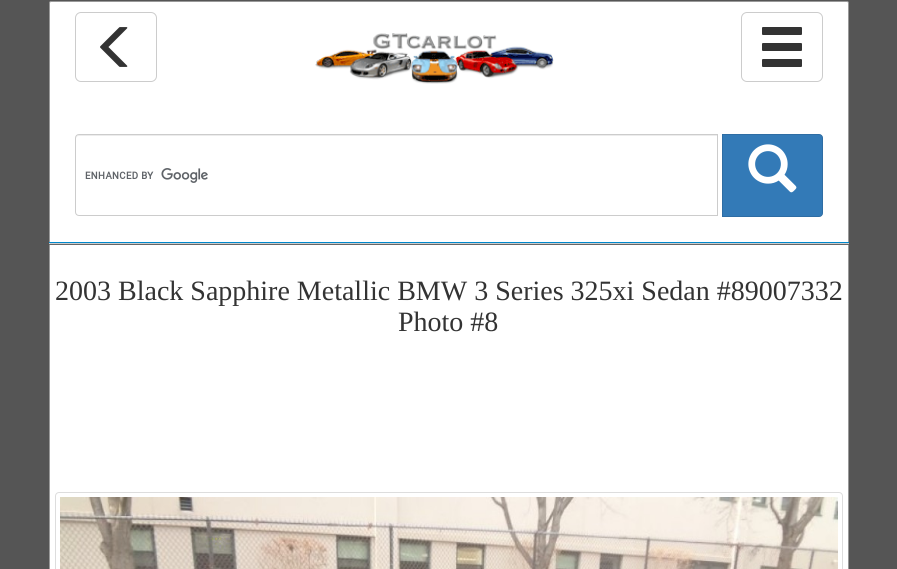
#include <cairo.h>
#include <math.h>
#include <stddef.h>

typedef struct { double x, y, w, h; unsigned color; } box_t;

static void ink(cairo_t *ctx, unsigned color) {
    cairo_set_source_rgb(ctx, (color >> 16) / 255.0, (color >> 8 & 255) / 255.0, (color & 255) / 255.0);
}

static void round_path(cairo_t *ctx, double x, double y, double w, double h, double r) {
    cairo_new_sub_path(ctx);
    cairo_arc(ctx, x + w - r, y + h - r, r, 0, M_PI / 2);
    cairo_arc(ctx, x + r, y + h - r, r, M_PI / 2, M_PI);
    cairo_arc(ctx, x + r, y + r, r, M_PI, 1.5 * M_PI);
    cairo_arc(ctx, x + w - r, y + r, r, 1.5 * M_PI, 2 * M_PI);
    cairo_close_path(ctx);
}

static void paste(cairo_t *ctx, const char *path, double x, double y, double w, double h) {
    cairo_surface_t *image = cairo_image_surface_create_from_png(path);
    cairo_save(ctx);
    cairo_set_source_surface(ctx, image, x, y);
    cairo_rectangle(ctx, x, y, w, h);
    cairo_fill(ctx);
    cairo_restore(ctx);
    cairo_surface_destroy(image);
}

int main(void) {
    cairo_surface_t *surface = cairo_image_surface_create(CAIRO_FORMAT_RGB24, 897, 569);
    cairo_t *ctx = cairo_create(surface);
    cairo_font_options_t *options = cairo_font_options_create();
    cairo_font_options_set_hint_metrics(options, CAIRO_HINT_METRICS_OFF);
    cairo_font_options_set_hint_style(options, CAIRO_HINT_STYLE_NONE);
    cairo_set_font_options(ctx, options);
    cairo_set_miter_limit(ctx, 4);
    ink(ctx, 0x555555);
    cairo_paint(ctx);
    ink(ctx, 0xFFFFFF);
    round_path(ctx, 49.5, 1.5, 799, 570, 1.5);
    cairo_fill_preserve(ctx);
    ink(ctx, 0x999999);
    cairo_set_line_width(ctx, 1);
    cairo_stroke(ctx);
    round_path(ctx, 75.5, 12.5, 81, 69, 5.5);
    ink(ctx, 0xCCCCCC);
    cairo_stroke(ctx);
    paste(ctx, "media/1.png", 100, 27, 28, 40);
    paste(ctx, "media/2.png", 315, 33, 239, 51);
    round_path(ctx, 741.5, 12.5, 81, 69, 5.5);
    cairo_stroke(ctx);
    paste(ctx, "media/3.png", 762, 27, 40, 40);
    paste(ctx, "media/4.png", 85, 168, 123, 15);
    ink(ctx, 0xECECEC);
    cairo_new_path(ctx);
    cairo_move_to(ctx, 79, 136);
    cairo_line_to(ctx, 717, 136);
    cairo_line_to(ctx, 717, 135);
    cairo_line_to(ctx, 79, 135);
    cairo_curve_to(ctx, 77, 135, 76, 136, 76, 138);
    cairo_line_to(ctx, 76, 139);
    cairo_curve_to(ctx, 76, 137, 77, 136, 79, 136);
    cairo_close_path(ctx);
    cairo_fill(ctx);
    cairo_new_path(ctx);
    cairo_move_to(ctx, 79, 134.5);
    cairo_line_to(ctx, 717.5, 134.5);
    cairo_line_to(ctx, 717.5, 215.5);
    cairo_line_to(ctx, 79, 215.5);
    cairo_curve_to(ctx, 77, 215.5, 75.5, 214, 75.5, 212);
    cairo_line_to(ctx, 75.5, 138);
    cairo_curve_to(ctx, 75.5, 136, 77, 134.5, 79, 134.5);
    cairo_close_path(ctx);
    ink(ctx, 0xCCCCCC);
    cairo_stroke(ctx);
    ink(ctx, 0x337AB7);
    cairo_new_path(ctx);
    cairo_move_to(ctx, 722.5, 134.5);
    cairo_line_to(ctx, 819, 134.5);
    cairo_curve_to(ctx, 821, 134.5, 822.5, 136, 822.5, 138);
    cairo_line_to(ctx, 822.5, 213);
    cairo_curve_to(ctx, 822.5, 215, 821, 216.5, 819, 216.5);
    cairo_line_to(ctx, 722.5, 216.5);
    cairo_close_path(ctx);
    cairo_fill_preserve(ctx);
    ink(ctx, 0x2E6DA4);
    cairo_stroke(ctx);
    paste(ctx, "media/5.png", 748, 144, 49, 49);
    {
        static const box_t items[] = {
            {49, 242, 800, 1, 0x0088CC},
            {49, 243, 800, 1, 0xCCCCCC},
            {49, 244, 800, 1, 0x666666},
        };
        for (size_t i = 0; i < sizeof items / sizeof *items; i++) {
            ink(ctx, items[i].color);
            cairo_rectangle(ctx, items[i].x, items[i].y, items[i].w, items[i].h);
            cairo_fill(ctx);
        }
    }
    cairo_select_font_face(ctx, "Liberation Serif", CAIRO_FONT_SLANT_NORMAL, CAIRO_FONT_WEIGHT_NORMAL);
    cairo_set_font_size(ctx, 28);
    ink(ctx, 0x333333);
    cairo_move_to(ctx, 55, 300);
    cairo_show_text(ctx, "2003 Black Sapphire Metallic BMW 3 Series 325xi Sedan #89007332");
    cairo_move_to(ctx, 398, 331);
    cairo_show_text(ctx, "Photo #8");
    round_path(ctx, 55.5, 492.5, 787, 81, 3.5);
    ink(ctx, 0xDDDDDD);
    cairo_stroke(ctx);
    paste(ctx, "media/6.png", 60, 497, 778, 72);
    cairo_surface_write_to_png(surface, "image.png");
    cairo_font_options_destroy(options);
    cairo_destroy(ctx);
    cairo_surface_destroy(surface);
    return 0;
}
